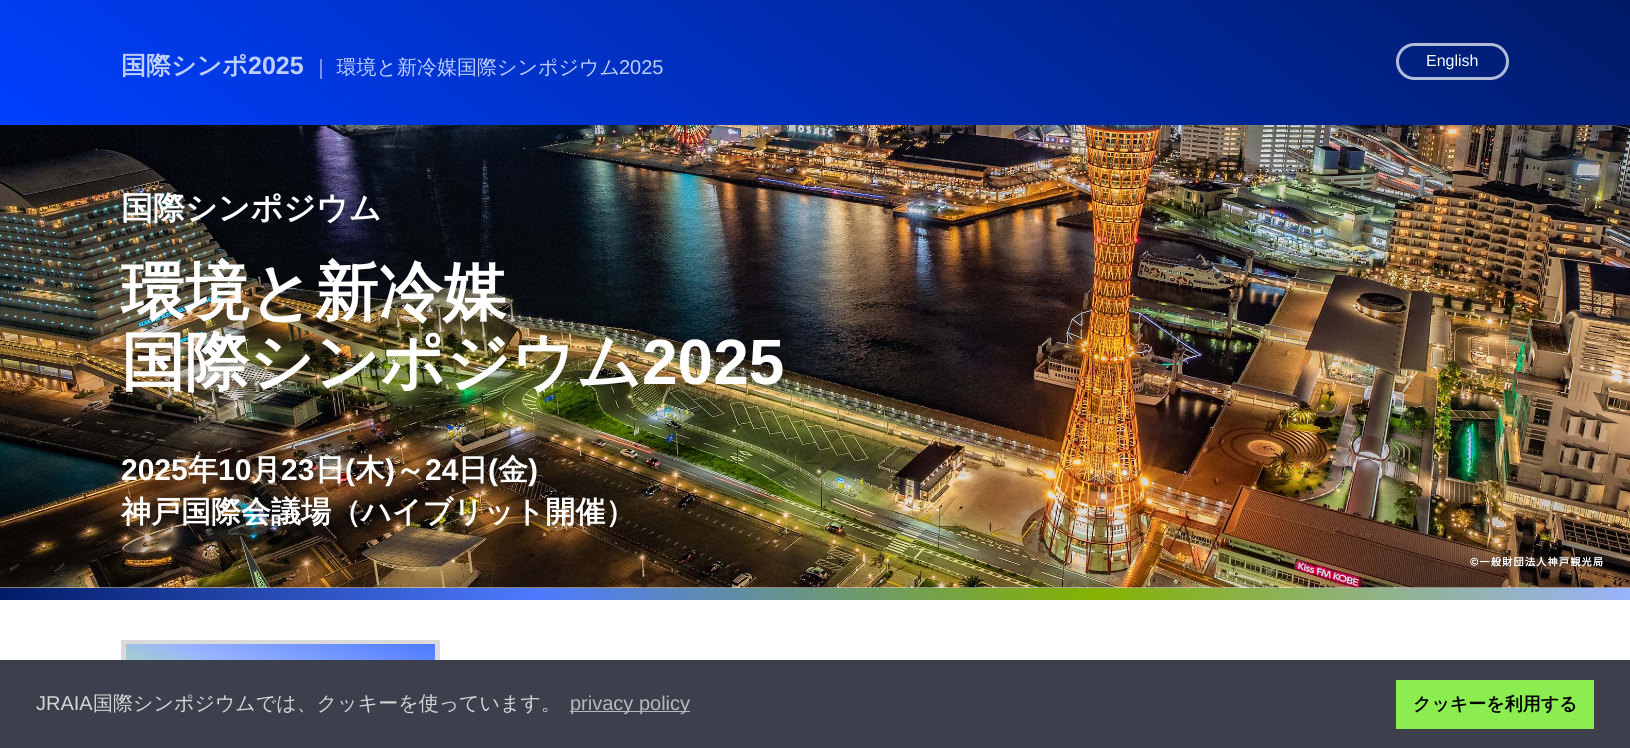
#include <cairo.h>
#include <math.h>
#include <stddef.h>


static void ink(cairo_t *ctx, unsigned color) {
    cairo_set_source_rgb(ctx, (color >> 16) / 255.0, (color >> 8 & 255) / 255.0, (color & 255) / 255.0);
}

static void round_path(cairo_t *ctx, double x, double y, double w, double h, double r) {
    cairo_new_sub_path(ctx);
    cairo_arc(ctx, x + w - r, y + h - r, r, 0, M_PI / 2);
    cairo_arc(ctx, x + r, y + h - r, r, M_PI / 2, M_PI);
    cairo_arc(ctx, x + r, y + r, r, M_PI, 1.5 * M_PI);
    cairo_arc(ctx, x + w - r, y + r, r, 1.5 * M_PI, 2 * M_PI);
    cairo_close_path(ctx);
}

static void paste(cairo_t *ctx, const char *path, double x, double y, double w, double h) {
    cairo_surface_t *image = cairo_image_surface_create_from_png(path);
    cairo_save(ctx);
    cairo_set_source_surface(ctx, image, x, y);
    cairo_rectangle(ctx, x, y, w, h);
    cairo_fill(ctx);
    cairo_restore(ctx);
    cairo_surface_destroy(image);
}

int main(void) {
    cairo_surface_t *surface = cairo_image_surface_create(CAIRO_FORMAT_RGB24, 1630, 748);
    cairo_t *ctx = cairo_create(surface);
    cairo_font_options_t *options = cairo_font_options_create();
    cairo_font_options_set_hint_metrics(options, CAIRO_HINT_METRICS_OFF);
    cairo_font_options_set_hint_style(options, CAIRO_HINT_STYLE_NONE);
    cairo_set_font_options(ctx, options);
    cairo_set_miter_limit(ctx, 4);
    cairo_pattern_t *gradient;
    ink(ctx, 0xFFFFFF);
    cairo_paint(ctx);
    gradient = cairo_pattern_create_linear(1112, -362, 518, 487);
    cairo_pattern_add_color_stop_rgba(gradient, 0, 0, 0.102, 0.4, 1);
    cairo_pattern_add_color_stop_rgba(gradient, 1, 0, 0.251, 1, 1);
    cairo_set_source(ctx, gradient);
    cairo_pattern_destroy(gradient);
    cairo_rectangle(ctx, 0, 0, 1630, 125);
    cairo_fill(ctx);
    cairo_select_font_face(ctx, "WenQuanYi Zen Hei", CAIRO_FONT_SLANT_NORMAL, CAIRO_FONT_WEIGHT_BOLD);
    cairo_set_font_size(ctx, 25);
    ink(ctx, 0xBFCFFF);
    cairo_move_to(ctx, 121, 74);
    cairo_show_text(ctx, "国際シンポ");
    cairo_select_font_face(ctx, "Liberation Sans", CAIRO_FONT_SLANT_NORMAL, CAIRO_FONT_WEIGHT_BOLD);
    cairo_move_to(ctx, 248, 74);
    cairo_show_text(ctx, "2025");
    cairo_select_font_face(ctx, "WenQuanYi Zen Hei Medium", CAIRO_FONT_SLANT_NORMAL, CAIRO_FONT_WEIGHT_NORMAL);
    cairo_set_font_size(ctx, 20);
    cairo_move_to(ctx, 311, 74);
    cairo_show_text(ctx, "｜ 環境と新冷媒国際シンポジウム");
    cairo_select_font_face(ctx, "Liberation Sans", CAIRO_FONT_SLANT_NORMAL, CAIRO_FONT_WEIGHT_NORMAL);
    cairo_move_to(ctx, 619, 74);
    cairo_show_text(ctx, "2025");
    round_path(ctx, 1397.5, 44.5, 110, 34, 17);
    cairo_set_source_rgba(ctx, 1, 1, 1, 0.7);
    cairo_set_line_width(ctx, 3);
    cairo_stroke(ctx);
    cairo_set_font_size(ctx, 16);
    ink(ctx, 0xFFFFFF);
    cairo_move_to(ctx, 1426, 66);
    cairo_show_text(ctx, "English");
    ink(ctx, 0xE9ECEF);
    cairo_rectangle(ctx, 0, 587, 1630, 1);
    cairo_fill(ctx);
    paste(ctx, "media/1.png", 0, 125, 1630, 463);
    cairo_select_font_face(ctx, "WenQuanYi Zen Hei", CAIRO_FONT_SLANT_NORMAL, CAIRO_FONT_WEIGHT_BOLD);
    cairo_set_font_size(ctx, 32);
    ink(ctx, 0xFFFFFF);
    cairo_move_to(ctx, 121, 219);
    cairo_show_text(ctx, "国際シンポジウム");
    cairo_set_font_size(ctx, 64);
    cairo_move_to(ctx, 121, 314);
    cairo_show_text(ctx, "環境と新冷媒");
    cairo_move_to(ctx, 121, 384);
    cairo_show_text(ctx, "国際シンポジウム");
    cairo_select_font_face(ctx, "Liberation Sans", CAIRO_FONT_SLANT_NORMAL, CAIRO_FONT_WEIGHT_BOLD);
    cairo_move_to(ctx, 642, 384);
    cairo_show_text(ctx, "2025");
    cairo_set_font_size(ctx, 30);
    cairo_move_to(ctx, 121, 480);
    cairo_show_text(ctx, "2025");
    cairo_select_font_face(ctx, "WenQuanYi Zen Hei", CAIRO_FONT_SLANT_NORMAL, CAIRO_FONT_WEIGHT_BOLD);
    cairo_move_to(ctx, 188, 480);
    cairo_show_text(ctx, "年");
    cairo_select_font_face(ctx, "Liberation Sans", CAIRO_FONT_SLANT_NORMAL, CAIRO_FONT_WEIGHT_BOLD);
    cairo_move_to(ctx, 218, 480);
    cairo_show_text(ctx, "10");
    cairo_select_font_face(ctx, "WenQuanYi Zen Hei", CAIRO_FONT_SLANT_NORMAL, CAIRO_FONT_WEIGHT_BOLD);
    cairo_move_to(ctx, 251, 480);
    cairo_show_text(ctx, "月");
    cairo_select_font_face(ctx, "Liberation Sans", CAIRO_FONT_SLANT_NORMAL, CAIRO_FONT_WEIGHT_BOLD);
    cairo_move_to(ctx, 281, 480);
    cairo_show_text(ctx, "23");
    cairo_select_font_face(ctx, "WenQuanYi Zen Hei", CAIRO_FONT_SLANT_NORMAL, CAIRO_FONT_WEIGHT_BOLD);
    cairo_move_to(ctx, 315, 480);
    cairo_show_text(ctx, "日");
    cairo_select_font_face(ctx, "Liberation Sans", CAIRO_FONT_SLANT_NORMAL, CAIRO_FONT_WEIGHT_BOLD);
    cairo_move_to(ctx, 345, 480);
    cairo_show_text(ctx, "(");
    cairo_select_font_face(ctx, "WenQuanYi Zen Hei", CAIRO_FONT_SLANT_NORMAL, CAIRO_FONT_WEIGHT_BOLD);
    cairo_move_to(ctx, 355, 480);
    cairo_show_text(ctx, "木");
    cairo_select_font_face(ctx, "Liberation Sans", CAIRO_FONT_SLANT_NORMAL, CAIRO_FONT_WEIGHT_BOLD);
    cairo_move_to(ctx, 385, 480);
    cairo_show_text(ctx, ")");
    cairo_select_font_face(ctx, "WenQuanYi Zen Hei", CAIRO_FONT_SLANT_NORMAL, CAIRO_FONT_WEIGHT_BOLD);
    cairo_move_to(ctx, 395, 480);
    cairo_show_text(ctx, "～");
    cairo_select_font_face(ctx, "Liberation Sans", CAIRO_FONT_SLANT_NORMAL, CAIRO_FONT_WEIGHT_BOLD);
    cairo_move_to(ctx, 425, 480);
    cairo_show_text(ctx, "24");
    cairo_select_font_face(ctx, "WenQuanYi Zen Hei", CAIRO_FONT_SLANT_NORMAL, CAIRO_FONT_WEIGHT_BOLD);
    cairo_move_to(ctx, 458, 480);
    cairo_show_text(ctx, "日");
    cairo_select_font_face(ctx, "Liberation Sans", CAIRO_FONT_SLANT_NORMAL, CAIRO_FONT_WEIGHT_BOLD);
    cairo_move_to(ctx, 488, 480);
    cairo_show_text(ctx, "(");
    cairo_select_font_face(ctx, "WenQuanYi Zen Hei", CAIRO_FONT_SLANT_NORMAL, CAIRO_FONT_WEIGHT_BOLD);
    cairo_move_to(ctx, 498, 480);
    cairo_show_text(ctx, "金");
    cairo_select_font_face(ctx, "Liberation Sans", CAIRO_FONT_SLANT_NORMAL, CAIRO_FONT_WEIGHT_BOLD);
    cairo_move_to(ctx, 528, 480);
    cairo_show_text(ctx, ")");
    cairo_select_font_face(ctx, "WenQuanYi Zen Hei", CAIRO_FONT_SLANT_NORMAL, CAIRO_FONT_WEIGHT_BOLD);
    cairo_move_to(ctx, 121, 522);
    cairo_show_text(ctx, "神戸国際会議場（ハイブリット開催）");
    gradient = cairo_pattern_create_linear(1226, 183, 404, 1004);
    cairo_pattern_add_color_stop_rgba(gradient, 0, 0.6, 0.702, 1, 1);
    cairo_pattern_add_color_stop_rgba(gradient, 0.33, 0.522, 0.698, 0, 1);
    cairo_pattern_add_color_stop_rgba(gradient, 0.67, 0.302, 0.478, 1, 1);
    cairo_pattern_add_color_stop_rgba(gradient, 1, 0, 0.102, 0.4, 1);
    cairo_set_source(ctx, gradient);
    cairo_pattern_destroy(gradient);
    cairo_rectangle(ctx, 0, 588, 1630, 12);
    cairo_fill(ctx);
    cairo_rectangle(ctx, 123, 642, 315, 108);
    ink(ctx, 0xDADADA);
    cairo_set_line_width(ctx, 4);
    cairo_stroke(ctx);
    cairo_rectangle(ctx, 435, 644, 1, 16);
    cairo_fill(ctx);
    cairo_rectangle(ctx, 125, 644, 1, 16);
    cairo_fill(ctx);
    gradient = cairo_pattern_create_linear(311, 599, 250, 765);
    cairo_pattern_add_color_stop_rgba(gradient, 0, 0.302, 0.478, 1, 1);
    cairo_pattern_add_color_stop_rgba(gradient, 0.5, 0.6, 0.702, 1, 1);
    cairo_pattern_add_color_stop_rgba(gradient, 1, 0.725, 1, 0.451, 1);
    cairo_set_source(ctx, gradient);
    cairo_pattern_destroy(gradient);
    cairo_rectangle(ctx, 126, 644, 309, 16);
    cairo_fill(ctx);
    ink(ctx, 0x3C404D);
    cairo_rectangle(ctx, 0, 660, 1630, 88);
    cairo_fill(ctx);
    cairo_select_font_face(ctx, "Liberation Sans", CAIRO_FONT_SLANT_NORMAL, CAIRO_FONT_WEIGHT_NORMAL);
    cairo_set_font_size(ctx, 20);
    ink(ctx, 0xD6D6D6);
    cairo_move_to(ctx, 36, 710);
    cairo_show_text(ctx, "JRAIA");
    cairo_select_font_face(ctx, "WenQuanYi Zen Hei Medium", CAIRO_FONT_SLANT_NORMAL, CAIRO_FONT_WEIGHT_NORMAL);
    cairo_move_to(ctx, 93, 710);
    cairo_show_text(ctx, "国際シンポジウムでは、クッキーを使っています。");
    ink(ctx, 0xB7B8BB);
    cairo_rectangle(ctx, 570, 711, 120, 1);
    cairo_fill(ctx);
    cairo_select_font_face(ctx, "Liberation Sans", CAIRO_FONT_SLANT_NORMAL, CAIRO_FONT_WEIGHT_NORMAL);
    cairo_move_to(ctx, 570, 710);
    cairo_show_text(ctx, "privacy policy");
    ink(ctx, 0x8BED4F);
    cairo_rectangle(ctx, 1396, 680, 198, 49);
    cairo_fill(ctx);
    cairo_select_font_face(ctx, "WenQuanYi Zen Hei", CAIRO_FONT_SLANT_NORMAL, CAIRO_FONT_WEIGHT_BOLD);
    cairo_set_font_size(ctx, 18);
    ink(ctx, 0x000000);
    cairo_move_to(ctx, 1413, 710);
    cairo_show_text(ctx, "クッキーを利用する");
    cairo_surface_write_to_png(surface, "image.png");
    cairo_font_options_destroy(options);
    cairo_destroy(ctx);
    cairo_surface_destroy(surface);
    return 0;
}
